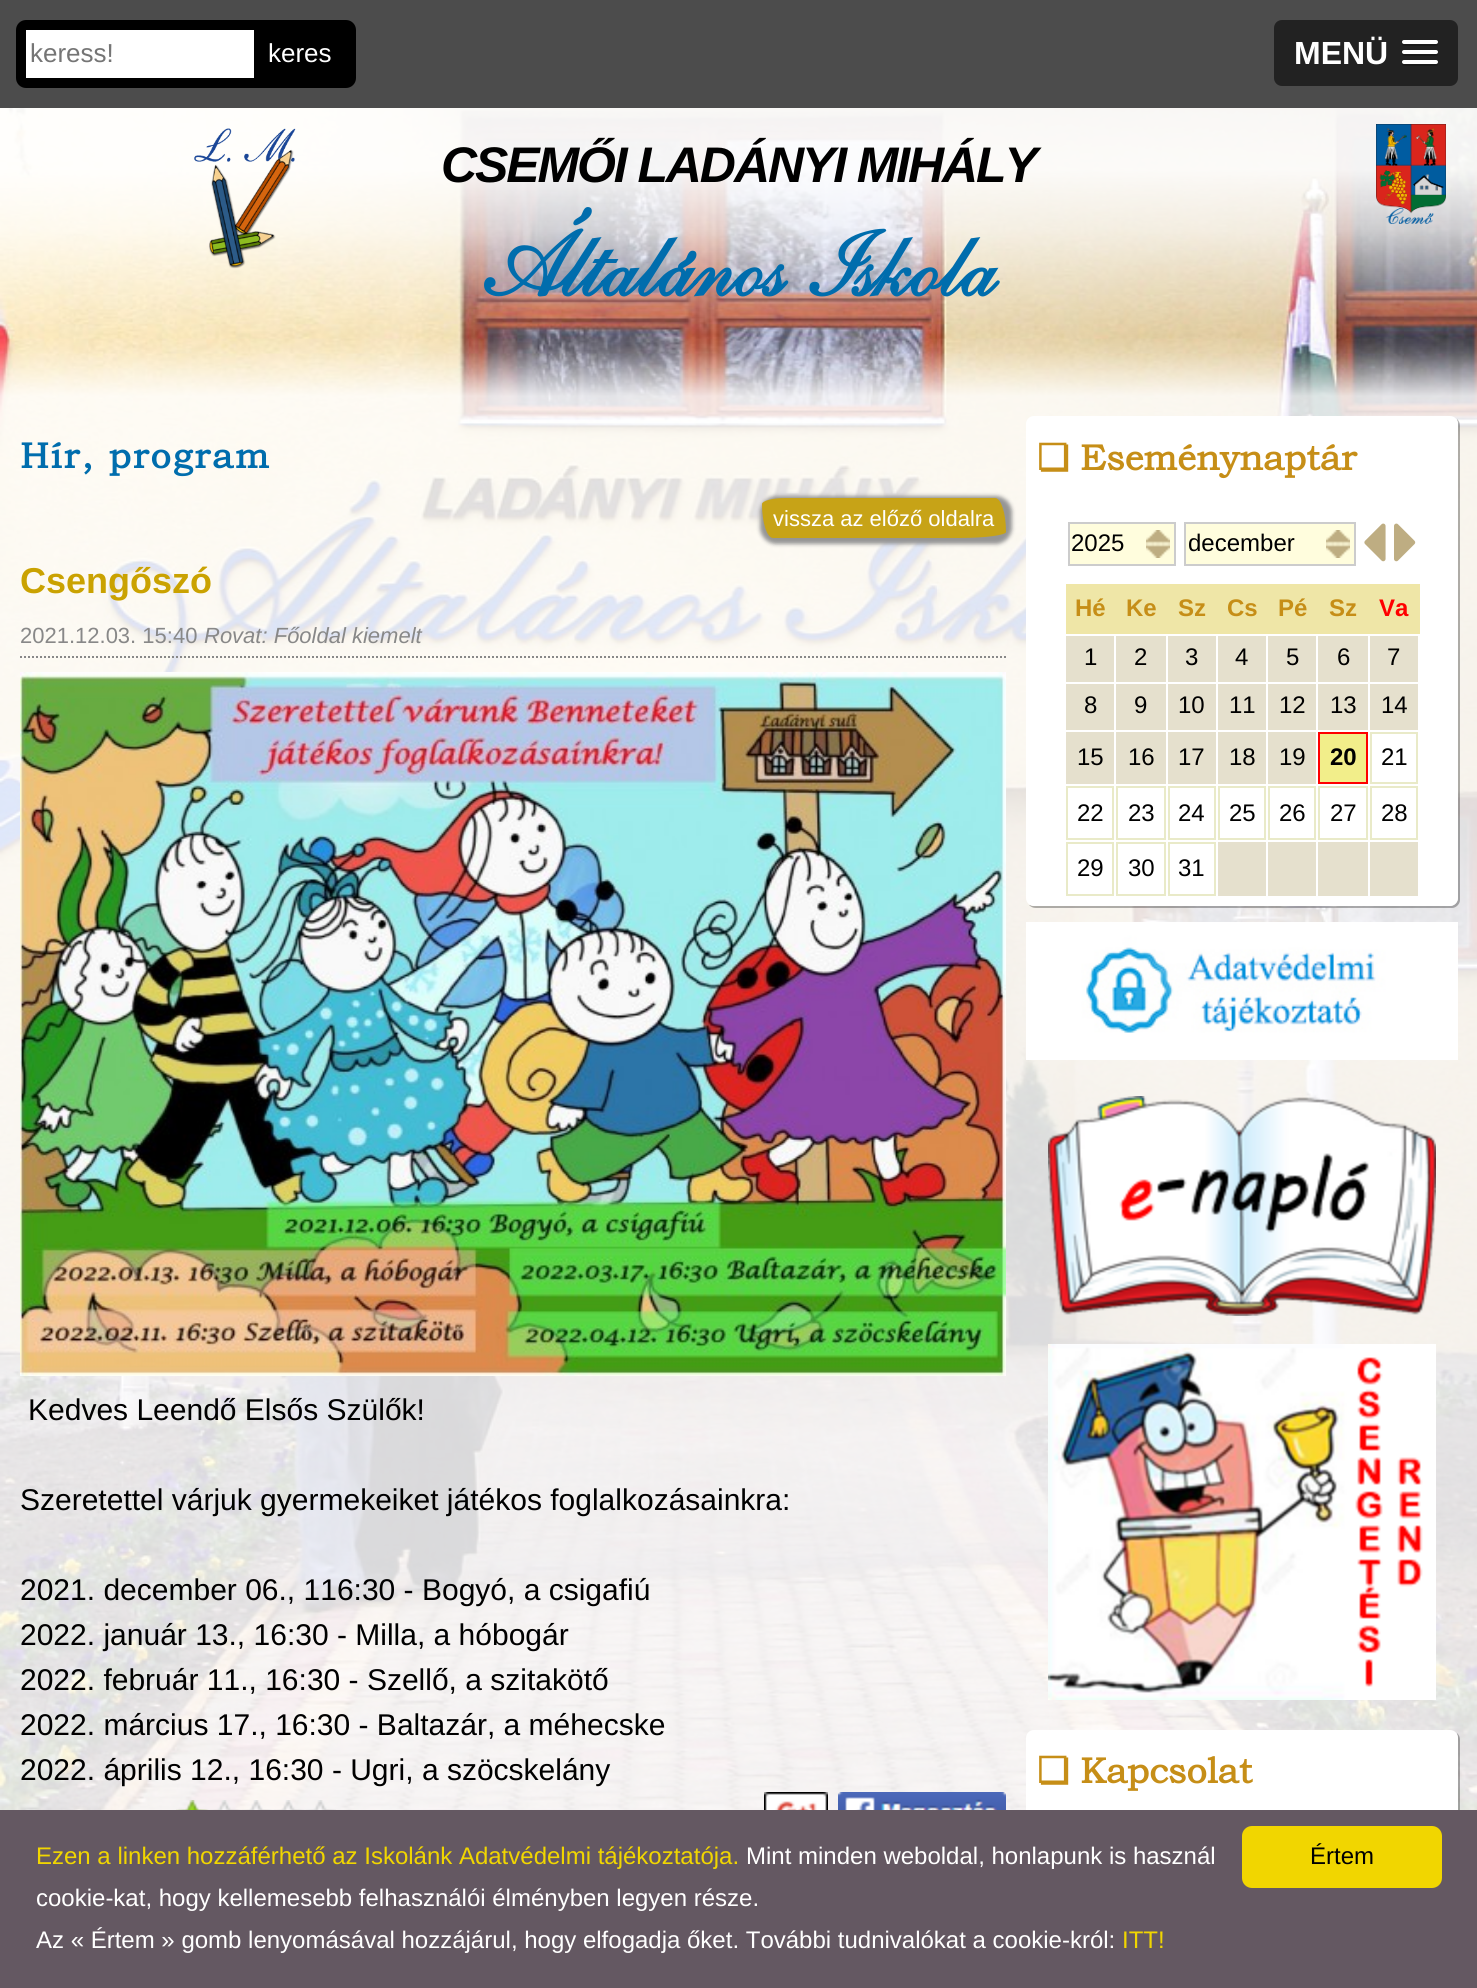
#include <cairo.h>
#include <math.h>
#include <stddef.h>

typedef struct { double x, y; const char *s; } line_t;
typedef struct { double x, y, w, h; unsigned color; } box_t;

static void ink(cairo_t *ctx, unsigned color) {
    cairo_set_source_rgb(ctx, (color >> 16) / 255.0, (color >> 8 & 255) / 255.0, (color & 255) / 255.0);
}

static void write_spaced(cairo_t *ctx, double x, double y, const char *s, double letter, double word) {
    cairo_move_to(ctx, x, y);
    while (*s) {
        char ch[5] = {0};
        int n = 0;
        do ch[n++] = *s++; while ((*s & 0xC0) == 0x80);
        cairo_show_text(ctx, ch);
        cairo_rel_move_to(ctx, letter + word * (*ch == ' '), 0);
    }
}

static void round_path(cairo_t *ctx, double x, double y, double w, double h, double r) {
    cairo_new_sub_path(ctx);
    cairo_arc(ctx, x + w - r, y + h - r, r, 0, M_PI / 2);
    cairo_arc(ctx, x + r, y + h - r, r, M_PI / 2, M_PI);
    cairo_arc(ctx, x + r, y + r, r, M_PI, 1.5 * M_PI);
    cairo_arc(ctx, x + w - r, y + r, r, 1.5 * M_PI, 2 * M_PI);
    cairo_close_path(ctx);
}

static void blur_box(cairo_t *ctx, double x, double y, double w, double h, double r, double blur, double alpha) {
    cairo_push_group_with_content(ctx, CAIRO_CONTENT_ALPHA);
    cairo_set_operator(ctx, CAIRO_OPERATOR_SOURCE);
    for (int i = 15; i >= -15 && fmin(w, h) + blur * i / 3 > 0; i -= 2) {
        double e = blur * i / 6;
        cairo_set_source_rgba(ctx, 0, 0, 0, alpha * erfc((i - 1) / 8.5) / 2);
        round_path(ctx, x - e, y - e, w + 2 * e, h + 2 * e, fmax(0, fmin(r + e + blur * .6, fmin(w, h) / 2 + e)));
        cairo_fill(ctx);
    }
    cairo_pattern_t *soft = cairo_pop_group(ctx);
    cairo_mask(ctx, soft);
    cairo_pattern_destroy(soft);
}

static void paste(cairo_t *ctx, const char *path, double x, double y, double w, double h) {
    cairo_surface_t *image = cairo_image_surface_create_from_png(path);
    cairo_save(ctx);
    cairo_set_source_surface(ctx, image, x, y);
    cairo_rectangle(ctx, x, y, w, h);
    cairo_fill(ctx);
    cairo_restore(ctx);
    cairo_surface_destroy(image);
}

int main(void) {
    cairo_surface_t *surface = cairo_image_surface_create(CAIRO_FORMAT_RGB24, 1477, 1988);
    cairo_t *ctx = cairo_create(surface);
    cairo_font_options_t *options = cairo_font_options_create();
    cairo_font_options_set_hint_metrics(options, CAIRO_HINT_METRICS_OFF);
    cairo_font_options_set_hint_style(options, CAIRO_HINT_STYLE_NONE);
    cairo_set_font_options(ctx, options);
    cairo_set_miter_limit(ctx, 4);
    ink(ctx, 0xFFFFFF);
    cairo_paint(ctx);
    ink(ctx, 0x4C4C4C);
    cairo_rectangle(ctx, 0, 0, 1477, 108);
    cairo_fill(ctx);
    ink(ctx, 0x000000);
    round_path(ctx, 16, 20, 340, 68, 10);
    cairo_fill(ctx);
    ink(ctx, 0xFFFFFF);
    cairo_rectangle(ctx, 26, 30, 228, 48);
    cairo_fill(ctx);
    cairo_select_font_face(ctx, "Liberation Sans", CAIRO_FONT_SLANT_NORMAL, CAIRO_FONT_WEIGHT_NORMAL);
    cairo_set_font_size(ctx, 26);
    ink(ctx, 0x757575);
    cairo_move_to(ctx, 30, 62);
    cairo_show_text(ctx, "keress!");
    ink(ctx, 0xFFFFFF);
    cairo_move_to(ctx, 268, 62);
    cairo_show_text(ctx, "keres");
    ink(ctx, 0x222222);
    round_path(ctx, 1274, 20, 184, 66, 8);
    cairo_fill(ctx);
    cairo_select_font_face(ctx, "Liberation Sans", CAIRO_FONT_SLANT_NORMAL, CAIRO_FONT_WEIGHT_BOLD);
    cairo_set_font_size(ctx, 32);
    ink(ctx, 0xFFFFFF);
    cairo_move_to(ctx, 1294, 64);
    cairo_show_text(ctx, "MENÜ");
    ink(ctx, 0x1A1A1A);
    cairo_new_path(ctx);
    cairo_move_to(ctx, 1402.5, 43);
    cairo_curve_to(ctx, 1400, 47, 1409, 46, 1409.5, 46);
    cairo_line_to(ctx, 1430.5, 46);
    cairo_curve_to(ctx, 1431, 46, 1440, 47, 1437.5, 43);
    cairo_curve_to(ctx, 1437.5, 43.5, 1436.5, 44, 1436, 44);
    cairo_line_to(ctx, 1404, 44);
    cairo_curve_to(ctx, 1403.5, 44, 1402.5, 43.5, 1402.5, 43);
    cairo_close_path(ctx);
    cairo_fill(ctx);
    ink(ctx, 0xFFFFFF);
    round_path(ctx, 1402, 40, 36, 4, 2);
    cairo_fill(ctx);
    ink(ctx, 0x1A1A1A);
    cairo_new_path(ctx);
    cairo_move_to(ctx, 1402.5, 53);
    cairo_curve_to(ctx, 1400, 57, 1409, 56, 1409.5, 56);
    cairo_line_to(ctx, 1430.5, 56);
    cairo_curve_to(ctx, 1431, 56, 1440, 57, 1437.5, 53);
    cairo_curve_to(ctx, 1437.5, 53.5, 1436.5, 54, 1436, 54);
    cairo_line_to(ctx, 1404, 54);
    cairo_curve_to(ctx, 1403.5, 54, 1402.5, 53.5, 1402.5, 53);
    cairo_close_path(ctx);
    cairo_fill(ctx);
    ink(ctx, 0xFFFFFF);
    round_path(ctx, 1402, 50, 36, 4, 2);
    cairo_fill(ctx);
    ink(ctx, 0x1A1A1A);
    cairo_new_path(ctx);
    cairo_move_to(ctx, 1402.5, 63);
    cairo_curve_to(ctx, 1400, 67, 1409, 66, 1409.5, 66);
    cairo_line_to(ctx, 1430.5, 66);
    cairo_curve_to(ctx, 1431, 66, 1440, 67, 1437.5, 63);
    cairo_curve_to(ctx, 1437.5, 63.5, 1436.5, 64, 1436, 64);
    cairo_line_to(ctx, 1404, 64);
    cairo_curve_to(ctx, 1403.5, 64, 1402.5, 63.5, 1402.5, 63);
    cairo_close_path(ctx);
    cairo_fill(ctx);
    ink(ctx, 0xFFFFFF);
    round_path(ctx, 1402, 60, 36, 4, 2);
    cairo_fill(ctx);
    paste(ctx, "media/1.png", 0, 108, 1477, 1702);
    paste(ctx, "media/2.png", 194, 128, 102, 141);
    cairo_select_font_face(ctx, "Liberation Sans", CAIRO_FONT_SLANT_ITALIC, CAIRO_FONT_WEIGHT_BOLD);
    cairo_set_font_size(ctx, 50);
    ink(ctx, 0x000000);
    write_spaced(ctx, 441, 182, "CSEMŐI LADÁNYI MIHÁLY", -2.1, 0);
    paste(ctx, "media/3.png", 1376, 124, 70, 100);
    cairo_select_font_face(ctx, "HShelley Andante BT", CAIRO_FONT_SLANT_NORMAL, CAIRO_FONT_WEIGHT_BOLD);
    cairo_set_font_size(ctx, 91.5);
    ink(ctx, 0x006DAD);
    cairo_move_to(ctx, 481, 296);
    cairo_show_text(ctx, "Általános Iskola");
    cairo_set_source_rgba(ctx, 1, 1, 1, 0.85);
    cairo_rectangle(ctx, 0, 396, 1477, 1414);
    cairo_fill(ctx);
    cairo_select_font_face(ctx, "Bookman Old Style", CAIRO_FONT_SLANT_NORMAL, CAIRO_FONT_WEIGHT_BOLD);
    cairo_set_font_size(ctx, 36);
    ink(ctx, 0x006DAD);
    write_spaced(ctx, 20, 468, "Hír, program", 2, 0);
    ink(ctx, 0x959595);
    blur_box(ctx, 760, 496, 252, 48, 16, 2, 1);
    ink(ctx, 0xC7A317);
    cairo_new_path(ctx);
    cairo_move_to(ctx, 785, 498);
    cairo_line_to(ctx, 995, 498);
    cairo_curve_to(ctx, 1001, 498, 1006, 513, 1006, 532);
    cairo_curve_to(ctx, 1006, 535, 986, 538, 960, 538);
    cairo_line_to(ctx, 773, 538);
    cairo_curve_to(ctx, 767, 538, 762, 523, 762, 504);
    cairo_curve_to(ctx, 762, 501, 772, 498, 785, 498);
    cairo_close_path(ctx);
    cairo_fill(ctx);
    cairo_select_font_face(ctx, "Liberation Sans", CAIRO_FONT_SLANT_NORMAL, CAIRO_FONT_WEIGHT_NORMAL);
    cairo_set_font_size(ctx, 22);
    ink(ctx, 0xFFFFFF);
    cairo_move_to(ctx, 773, 526);
    cairo_show_text(ctx, "vissza az előző oldalra");
    cairo_select_font_face(ctx, "Liberation Sans", CAIRO_FONT_SLANT_NORMAL, CAIRO_FONT_WEIGHT_BOLD);
    cairo_set_font_size(ctx, 36);
    ink(ctx, 0xCAA201);
    cairo_move_to(ctx, 20, 593);
    cairo_show_text(ctx, "Csengőszó");
    cairo_new_path(ctx);
    cairo_move_to(ctx, 20, 657);
    cairo_line_to(ctx, 1006, 657);
    ink(ctx, 0x888888);
    cairo_set_dash(ctx, (double[]){2, 2}, 2, 0);
    cairo_stroke(ctx);
    cairo_select_font_face(ctx, "Liberation Sans", CAIRO_FONT_SLANT_NORMAL, CAIRO_FONT_WEIGHT_NORMAL);
    cairo_set_font_size(ctx, 22);
    cairo_move_to(ctx, 20, 643);
    cairo_show_text(ctx, "2021.12.03. 15:40");
    cairo_select_font_face(ctx, "Liberation Sans", CAIRO_FONT_SLANT_ITALIC, CAIRO_FONT_WEIGHT_NORMAL);
    cairo_move_to(ctx, 204, 643);
    cairo_show_text(ctx, "Rovat: Főoldal kiemelt");
    paste(ctx, "media/4.png", 20, 672, 986, 704);
    cairo_select_font_face(ctx, "Liberation Sans", CAIRO_FONT_SLANT_NORMAL, CAIRO_FONT_WEIGHT_NORMAL);
    cairo_set_font_size(ctx, 30);
    ink(ctx, 0x000000);
    {
        static const line_t items[] = {
            {28, 1420, "Kedves Leendő Elsős Szülők!"},
            {20, 1510, "Szeretettel várjuk gyermekeiket játékos foglalkozásainkra:"},
            {20, 1600, "2021. december 06., 116:30 - Bogyó, a csigafiú"},
            {20, 1645, "2022. január 13., 16:30 - Milla, a hóbogár"},
            {20, 1690, "2022. február 11., 16:30 - Szellő, a szitakötő"},
            {20, 1735, "2022. március 17., 16:30 - Baltazár, a méhecske"},
            {20, 1780, "2022. április 12., 16:30 - Ugri, a szöcskelány"},
        };
        for (size_t i = 0; i < sizeof items / sizeof *items; i++) {
            cairo_move_to(ctx, items[i].x, items[i].y);
            cairo_show_text(ctx, items[i].s);
        }
    }
    paste(ctx, "media/5.png", 176, 1800, 160, 10);
    paste(ctx, "media/6.png", 764, 1792, 64, 18);
    paste(ctx, "media/7.png", 838, 1792, 168, 18);
    cairo_set_source_rgba(ctx, 0, 0, 0, 0.3);
    cairo_new_path(ctx);
    cairo_move_to(ctx, 1029, 905);
    cairo_curve_to(ctx, 1031, 907, 1033, 908, 1036, 908);
    cairo_line_to(ctx, 1452, 908);
    cairo_curve_to(ctx, 1456, 908, 1460, 904, 1460, 900);
    cairo_line_to(ctx, 1460, 426);
    cairo_curve_to(ctx, 1460, 423, 1459, 421, 1457, 419);
    cairo_curve_to(ctx, 1457, 421, 1458, 422, 1458, 424);
    cairo_line_to(ctx, 1458, 898);
    cairo_curve_to(ctx, 1458, 902, 1454, 906, 1450, 906);
    cairo_line_to(ctx, 1034, 906);
    cairo_curve_to(ctx, 1032, 906, 1031, 905, 1029, 905);
    cairo_close_path(ctx);
    cairo_fill(ctx);
    ink(ctx, 0xFFFFFF);
    round_path(ctx, 1026, 416, 432, 490, 8);
    cairo_fill(ctx);
    cairo_select_font_face(ctx, "DejaVu Sans", CAIRO_FONT_SLANT_NORMAL, CAIRO_FONT_WEIGHT_BOLD);
    cairo_set_font_size(ctx, 36);
    ink(ctx, 0xC68E17);
    cairo_move_to(ctx, 1037, 470);
    cairo_show_text(ctx, "❏");
    cairo_select_font_face(ctx, "Bookman Old Style", CAIRO_FONT_SLANT_NORMAL, CAIRO_FONT_WEIGHT_BOLD);
    cairo_move_to(ctx, 1080, 470);
    cairo_show_text(ctx, "Eseménynaptár");
    ink(ctx, 0xFFFDDD);
    cairo_rectangle(ctx, 1070, 524, 104, 40);
    cairo_fill(ctx);
    paste(ctx, "media/8.png", 1146, 530, 24, 28);
    cairo_rectangle(ctx, 1069, 523, 106, 42);
    ink(ctx, 0xCCCCCC);
    cairo_set_dash(ctx, NULL, 0, 0);
    cairo_stroke(ctx);
    cairo_select_font_face(ctx, "Liberation Sans", CAIRO_FONT_SLANT_NORMAL, CAIRO_FONT_WEIGHT_NORMAL);
    cairo_set_font_size(ctx, 24);
    ink(ctx, 0x000000);
    cairo_move_to(ctx, 1071, 551);
    cairo_show_text(ctx, "2025");
    ink(ctx, 0xFFFDDD);
    cairo_rectangle(ctx, 1186, 524, 168, 40);
    cairo_fill(ctx);
    paste(ctx, "media/8.png", 1326, 530, 24, 28);
    cairo_rectangle(ctx, 1185, 523, 170, 42);
    ink(ctx, 0xCCCCCC);
    cairo_stroke(ctx);
    ink(ctx, 0x000000);
    cairo_move_to(ctx, 1188, 551);
    cairo_show_text(ctx, "december");
    paste(ctx, "media/9.png", 1364, 523, 22, 39);
    paste(ctx, "media/10.png", 1394, 523, 22, 39);
    ink(ctx, 0xEFE6A7);
    cairo_rectangle(ctx, 1066, 584, 354, 50);
    cairo_fill(ctx);
    cairo_select_font_face(ctx, "Liberation Sans", CAIRO_FONT_SLANT_NORMAL, CAIRO_FONT_WEIGHT_BOLD);
    ink(ctx, 0xC68E17);
    {
        static const line_t items[] = {
            {1075, 616, "Hé"},
            {1126, 616, "Ke"},
            {1178, 616, "Sz"},
            {1227, 616, "Cs"},
            {1278, 616, "Pé"},
            {1329, 616, "Sz"},
        };
        for (size_t i = 0; i < sizeof items / sizeof *items; i++) {
            cairo_move_to(ctx, items[i].x, items[i].y);
            cairo_show_text(ctx, items[i].s);
        }
    }
    ink(ctx, 0xFF0000);
    cairo_move_to(ctx, 1379, 616);
    cairo_show_text(ctx, "Va");
    ink(ctx, 0xE5E0CD);
    cairo_rectangle(ctx, 1066, 636, 48, 46);
    cairo_fill(ctx);
    cairo_select_font_face(ctx, "Liberation Sans", CAIRO_FONT_SLANT_NORMAL, CAIRO_FONT_WEIGHT_NORMAL);
    ink(ctx, 0x000000);
    cairo_move_to(ctx, 1084, 665);
    cairo_show_text(ctx, "1");
    ink(ctx, 0xE5E0CD);
    cairo_rectangle(ctx, 1116, 636, 50, 46);
    cairo_fill(ctx);
    ink(ctx, 0x000000);
    cairo_move_to(ctx, 1134, 665);
    cairo_show_text(ctx, "2");
    ink(ctx, 0xE5E0CD);
    cairo_rectangle(ctx, 1168, 636, 48, 46);
    cairo_fill(ctx);
    ink(ctx, 0x000000);
    cairo_move_to(ctx, 1185, 665);
    cairo_show_text(ctx, "3");
    ink(ctx, 0xE5E0CD);
    cairo_rectangle(ctx, 1218, 636, 48, 46);
    cairo_fill(ctx);
    ink(ctx, 0x000000);
    cairo_move_to(ctx, 1235, 665);
    cairo_show_text(ctx, "4");
    ink(ctx, 0xE5E0CD);
    cairo_rectangle(ctx, 1268, 636, 48, 46);
    cairo_fill(ctx);
    ink(ctx, 0x000000);
    cairo_move_to(ctx, 1286, 665);
    cairo_show_text(ctx, "5");
    ink(ctx, 0xE5E0CD);
    cairo_rectangle(ctx, 1318, 636, 50, 46);
    cairo_fill(ctx);
    ink(ctx, 0x000000);
    cairo_move_to(ctx, 1337, 665);
    cairo_show_text(ctx, "6");
    ink(ctx, 0xE5E0CD);
    cairo_rectangle(ctx, 1370, 636, 48, 46);
    cairo_fill(ctx);
    ink(ctx, 0x000000);
    cairo_move_to(ctx, 1387, 665);
    cairo_show_text(ctx, "7");
    ink(ctx, 0xE5E0CD);
    cairo_rectangle(ctx, 1066, 684, 48, 46);
    cairo_fill(ctx);
    ink(ctx, 0x000000);
    cairo_move_to(ctx, 1084, 713);
    cairo_show_text(ctx, "8");
    ink(ctx, 0xE5E0CD);
    cairo_rectangle(ctx, 1116, 684, 50, 46);
    cairo_fill(ctx);
    ink(ctx, 0x000000);
    cairo_move_to(ctx, 1134, 713);
    cairo_show_text(ctx, "9");
    ink(ctx, 0xE5E0CD);
    cairo_rectangle(ctx, 1168, 684, 48, 46);
    cairo_fill(ctx);
    ink(ctx, 0x000000);
    cairo_move_to(ctx, 1178, 713);
    cairo_show_text(ctx, "10");
    ink(ctx, 0xE5E0CD);
    cairo_rectangle(ctx, 1218, 684, 48, 46);
    cairo_fill(ctx);
    ink(ctx, 0x000000);
    cairo_move_to(ctx, 1229, 713);
    cairo_show_text(ctx, "11");
    ink(ctx, 0xE5E0CD);
    cairo_rectangle(ctx, 1268, 684, 48, 46);
    cairo_fill(ctx);
    ink(ctx, 0x000000);
    cairo_move_to(ctx, 1279, 713);
    cairo_show_text(ctx, "12");
    ink(ctx, 0xE5E0CD);
    cairo_rectangle(ctx, 1318, 684, 50, 46);
    cairo_fill(ctx);
    ink(ctx, 0x000000);
    cairo_move_to(ctx, 1330, 713);
    cairo_show_text(ctx, "13");
    ink(ctx, 0xE5E0CD);
    cairo_rectangle(ctx, 1370, 684, 48, 46);
    cairo_fill(ctx);
    ink(ctx, 0x000000);
    cairo_move_to(ctx, 1381, 713);
    cairo_show_text(ctx, "14");
    ink(ctx, 0xE5E0CD);
    cairo_rectangle(ctx, 1066, 732, 48, 52);
    cairo_fill(ctx);
    ink(ctx, 0x000000);
    cairo_move_to(ctx, 1077, 765);
    cairo_show_text(ctx, "15");
    ink(ctx, 0xE5E0CD);
    cairo_rectangle(ctx, 1116, 732, 50, 52);
    cairo_fill(ctx);
    ink(ctx, 0x000000);
    cairo_move_to(ctx, 1128, 765);
    cairo_show_text(ctx, "16");
    ink(ctx, 0xE5E0CD);
    cairo_rectangle(ctx, 1168, 732, 48, 52);
    cairo_fill(ctx);
    ink(ctx, 0x000000);
    cairo_move_to(ctx, 1178, 765);
    cairo_show_text(ctx, "17");
    ink(ctx, 0xE5E0CD);
    cairo_rectangle(ctx, 1218, 732, 48, 52);
    cairo_fill(ctx);
    ink(ctx, 0x000000);
    cairo_move_to(ctx, 1229, 765);
    cairo_show_text(ctx, "18");
    ink(ctx, 0xE5E0CD);
    cairo_rectangle(ctx, 1268, 732, 48, 52);
    cairo_fill(ctx);
    ink(ctx, 0x000000);
    cairo_move_to(ctx, 1279, 765);
    cairo_show_text(ctx, "19");
    ink(ctx, 0xF2EE8A);
    cairo_rectangle(ctx, 1319, 733, 48, 50);
    cairo_fill_preserve(ctx);
    ink(ctx, 0xFF0000);
    cairo_stroke(ctx);
    cairo_select_font_face(ctx, "Liberation Sans", CAIRO_FONT_SLANT_NORMAL, CAIRO_FONT_WEIGHT_BOLD);
    ink(ctx, 0x000000);
    cairo_move_to(ctx, 1330, 765);
    cairo_show_text(ctx, "20");
    cairo_rectangle(ctx, 1371, 733, 46, 50);
    ink(ctx, 0xE9EAC8);
    cairo_stroke(ctx);
    cairo_select_font_face(ctx, "Liberation Sans", CAIRO_FONT_SLANT_NORMAL, CAIRO_FONT_WEIGHT_NORMAL);
    ink(ctx, 0x000000);
    cairo_move_to(ctx, 1381, 765);
    cairo_show_text(ctx, "21");
    cairo_rectangle(ctx, 1067, 787, 46, 52);
    ink(ctx, 0xE9EAC8);
    cairo_stroke(ctx);
    ink(ctx, 0x000000);
    cairo_move_to(ctx, 1077, 821);
    cairo_show_text(ctx, "22");
    cairo_rectangle(ctx, 1117, 787, 48, 52);
    ink(ctx, 0xE9EAC8);
    cairo_stroke(ctx);
    ink(ctx, 0x000000);
    cairo_move_to(ctx, 1128, 821);
    cairo_show_text(ctx, "23");
    cairo_rectangle(ctx, 1169, 787, 46, 52);
    ink(ctx, 0xE9EAC8);
    cairo_stroke(ctx);
    ink(ctx, 0x000000);
    cairo_move_to(ctx, 1178, 821);
    cairo_show_text(ctx, "24");
    cairo_rectangle(ctx, 1219, 787, 46, 52);
    ink(ctx, 0xE9EAC8);
    cairo_stroke(ctx);
    ink(ctx, 0x000000);
    cairo_move_to(ctx, 1229, 821);
    cairo_show_text(ctx, "25");
    cairo_rectangle(ctx, 1269, 787, 46, 52);
    ink(ctx, 0xE9EAC8);
    cairo_stroke(ctx);
    ink(ctx, 0x000000);
    cairo_move_to(ctx, 1279, 821);
    cairo_show_text(ctx, "26");
    cairo_rectangle(ctx, 1319, 787, 48, 52);
    ink(ctx, 0xE9EAC8);
    cairo_stroke(ctx);
    ink(ctx, 0x000000);
    cairo_move_to(ctx, 1330, 821);
    cairo_show_text(ctx, "27");
    cairo_rectangle(ctx, 1371, 787, 46, 52);
    ink(ctx, 0xE9EAC8);
    cairo_stroke(ctx);
    ink(ctx, 0x000000);
    cairo_move_to(ctx, 1381, 821);
    cairo_show_text(ctx, "28");
    cairo_rectangle(ctx, 1067, 843, 46, 52);
    ink(ctx, 0xE9EAC8);
    cairo_stroke(ctx);
    ink(ctx, 0x000000);
    cairo_move_to(ctx, 1077, 876);
    cairo_show_text(ctx, "29");
    cairo_rectangle(ctx, 1117, 843, 48, 52);
    ink(ctx, 0xE9EAC8);
    cairo_stroke(ctx);
    ink(ctx, 0x000000);
    cairo_move_to(ctx, 1128, 876);
    cairo_show_text(ctx, "30");
    cairo_rectangle(ctx, 1169, 843, 46, 52);
    ink(ctx, 0xE9EAC8);
    cairo_stroke(ctx);
    ink(ctx, 0x000000);
    cairo_move_to(ctx, 1178, 876);
    cairo_show_text(ctx, "31");
    {
        static const box_t items[] = {
            {1218, 842, 48, 54, 0xE5E0CD},
            {1268, 842, 48, 54, 0xE5E0CD},
            {1318, 842, 50, 54, 0xE5E0CD},
            {1370, 842, 48, 54, 0xE5E0CD},
        };
        for (size_t i = 0; i < sizeof items / sizeof *items; i++) {
            ink(ctx, items[i].color);
            cairo_rectangle(ctx, items[i].x, items[i].y, items[i].w, items[i].h);
            cairo_fill(ctx);
        }
    }
    paste(ctx, "media/11.png", 1026, 922, 432, 138);
    paste(ctx, "media/12.png", 1048, 1096, 388, 220);
    paste(ctx, "media/13.png", 1048, 1344, 388, 356);
    cairo_set_source_rgba(ctx, 0, 0, 0, 0.3);
    cairo_new_path(ctx);
    cairo_move_to(ctx, 1029, 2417);
    cairo_curve_to(ctx, 1031, 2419, 1033, 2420, 1036, 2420);
    cairo_line_to(ctx, 1452, 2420);
    cairo_curve_to(ctx, 1456, 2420, 1460, 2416, 1460, 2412);
    cairo_line_to(ctx, 1460, 1740);
    cairo_curve_to(ctx, 1460, 1737, 1459, 1735, 1457, 1733);
    cairo_curve_to(ctx, 1457, 1735, 1458, 1736, 1458, 1738);
    cairo_line_to(ctx, 1458, 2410);
    cairo_curve_to(ctx, 1458, 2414, 1454, 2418, 1450, 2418);
    cairo_line_to(ctx, 1034, 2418);
    cairo_curve_to(ctx, 1032, 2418, 1031, 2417, 1029, 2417);
    cairo_close_path(ctx);
    cairo_fill(ctx);
    ink(ctx, 0xFFFFFF);
    round_path(ctx, 1026, 1730, 432, 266, 8);
    cairo_fill(ctx);
    cairo_select_font_face(ctx, "DejaVu Sans", CAIRO_FONT_SLANT_NORMAL, CAIRO_FONT_WEIGHT_BOLD);
    cairo_set_font_size(ctx, 36);
    ink(ctx, 0xC68E17);
    cairo_move_to(ctx, 1037, 1783);
    cairo_show_text(ctx, "❏");
    cairo_select_font_face(ctx, "Bookman Old Style", CAIRO_FONT_SLANT_NORMAL, CAIRO_FONT_WEIGHT_BOLD);
    cairo_move_to(ctx, 1080, 1783);
    cairo_show_text(ctx, "Kapcsolat");
    ink(ctx, 0x645862);
    cairo_rectangle(ctx, 0, 1810, 1477, 178);
    cairo_fill(ctx);
    cairo_select_font_face(ctx, "Liberation Sans", CAIRO_FONT_SLANT_NORMAL, CAIRO_FONT_WEIGHT_NORMAL);
    cairo_set_font_size(ctx, 24);
    ink(ctx, 0xF1D600);
    cairo_move_to(ctx, 36, 1864);
    cairo_show_text(ctx, "Ezen a linken hozzáférhető az Iskolánk Adatvédelmi tájékoztatója.");
    ink(ctx, 0xFFFFFF);
    {
        static const line_t items[] = {
            {746, 1864, "Mint minden weboldal, honlapunk is használ"},
            {36, 1906, "cookie-kat, hogy kellemesebb felhasználói élményben legyen része."},
            {36, 1948, "Az « Értem » gomb lenyomásával hozzájárul, hogy elfogadja őket. További tudnivalókat a cookie-król:"},
        };
        for (size_t i = 0; i < sizeof items / sizeof *items; i++) {
            cairo_move_to(ctx, items[i].x, items[i].y);
            cairo_show_text(ctx, items[i].s);
        }
    }
    ink(ctx, 0xF1D600);
    cairo_move_to(ctx, 1122, 1948);
    cairo_show_text(ctx, "ITT!");
    round_path(ctx, 1242, 1826, 200, 62, 10);
    cairo_fill(ctx);
    ink(ctx, 0x000000);
    cairo_move_to(ctx, 1310, 1864);
    cairo_show_text(ctx, "Értem");
    cairo_surface_write_to_png(surface, "image.png");
    cairo_font_options_destroy(options);
    cairo_destroy(ctx);
    cairo_surface_destroy(surface);
    return 0;
}
